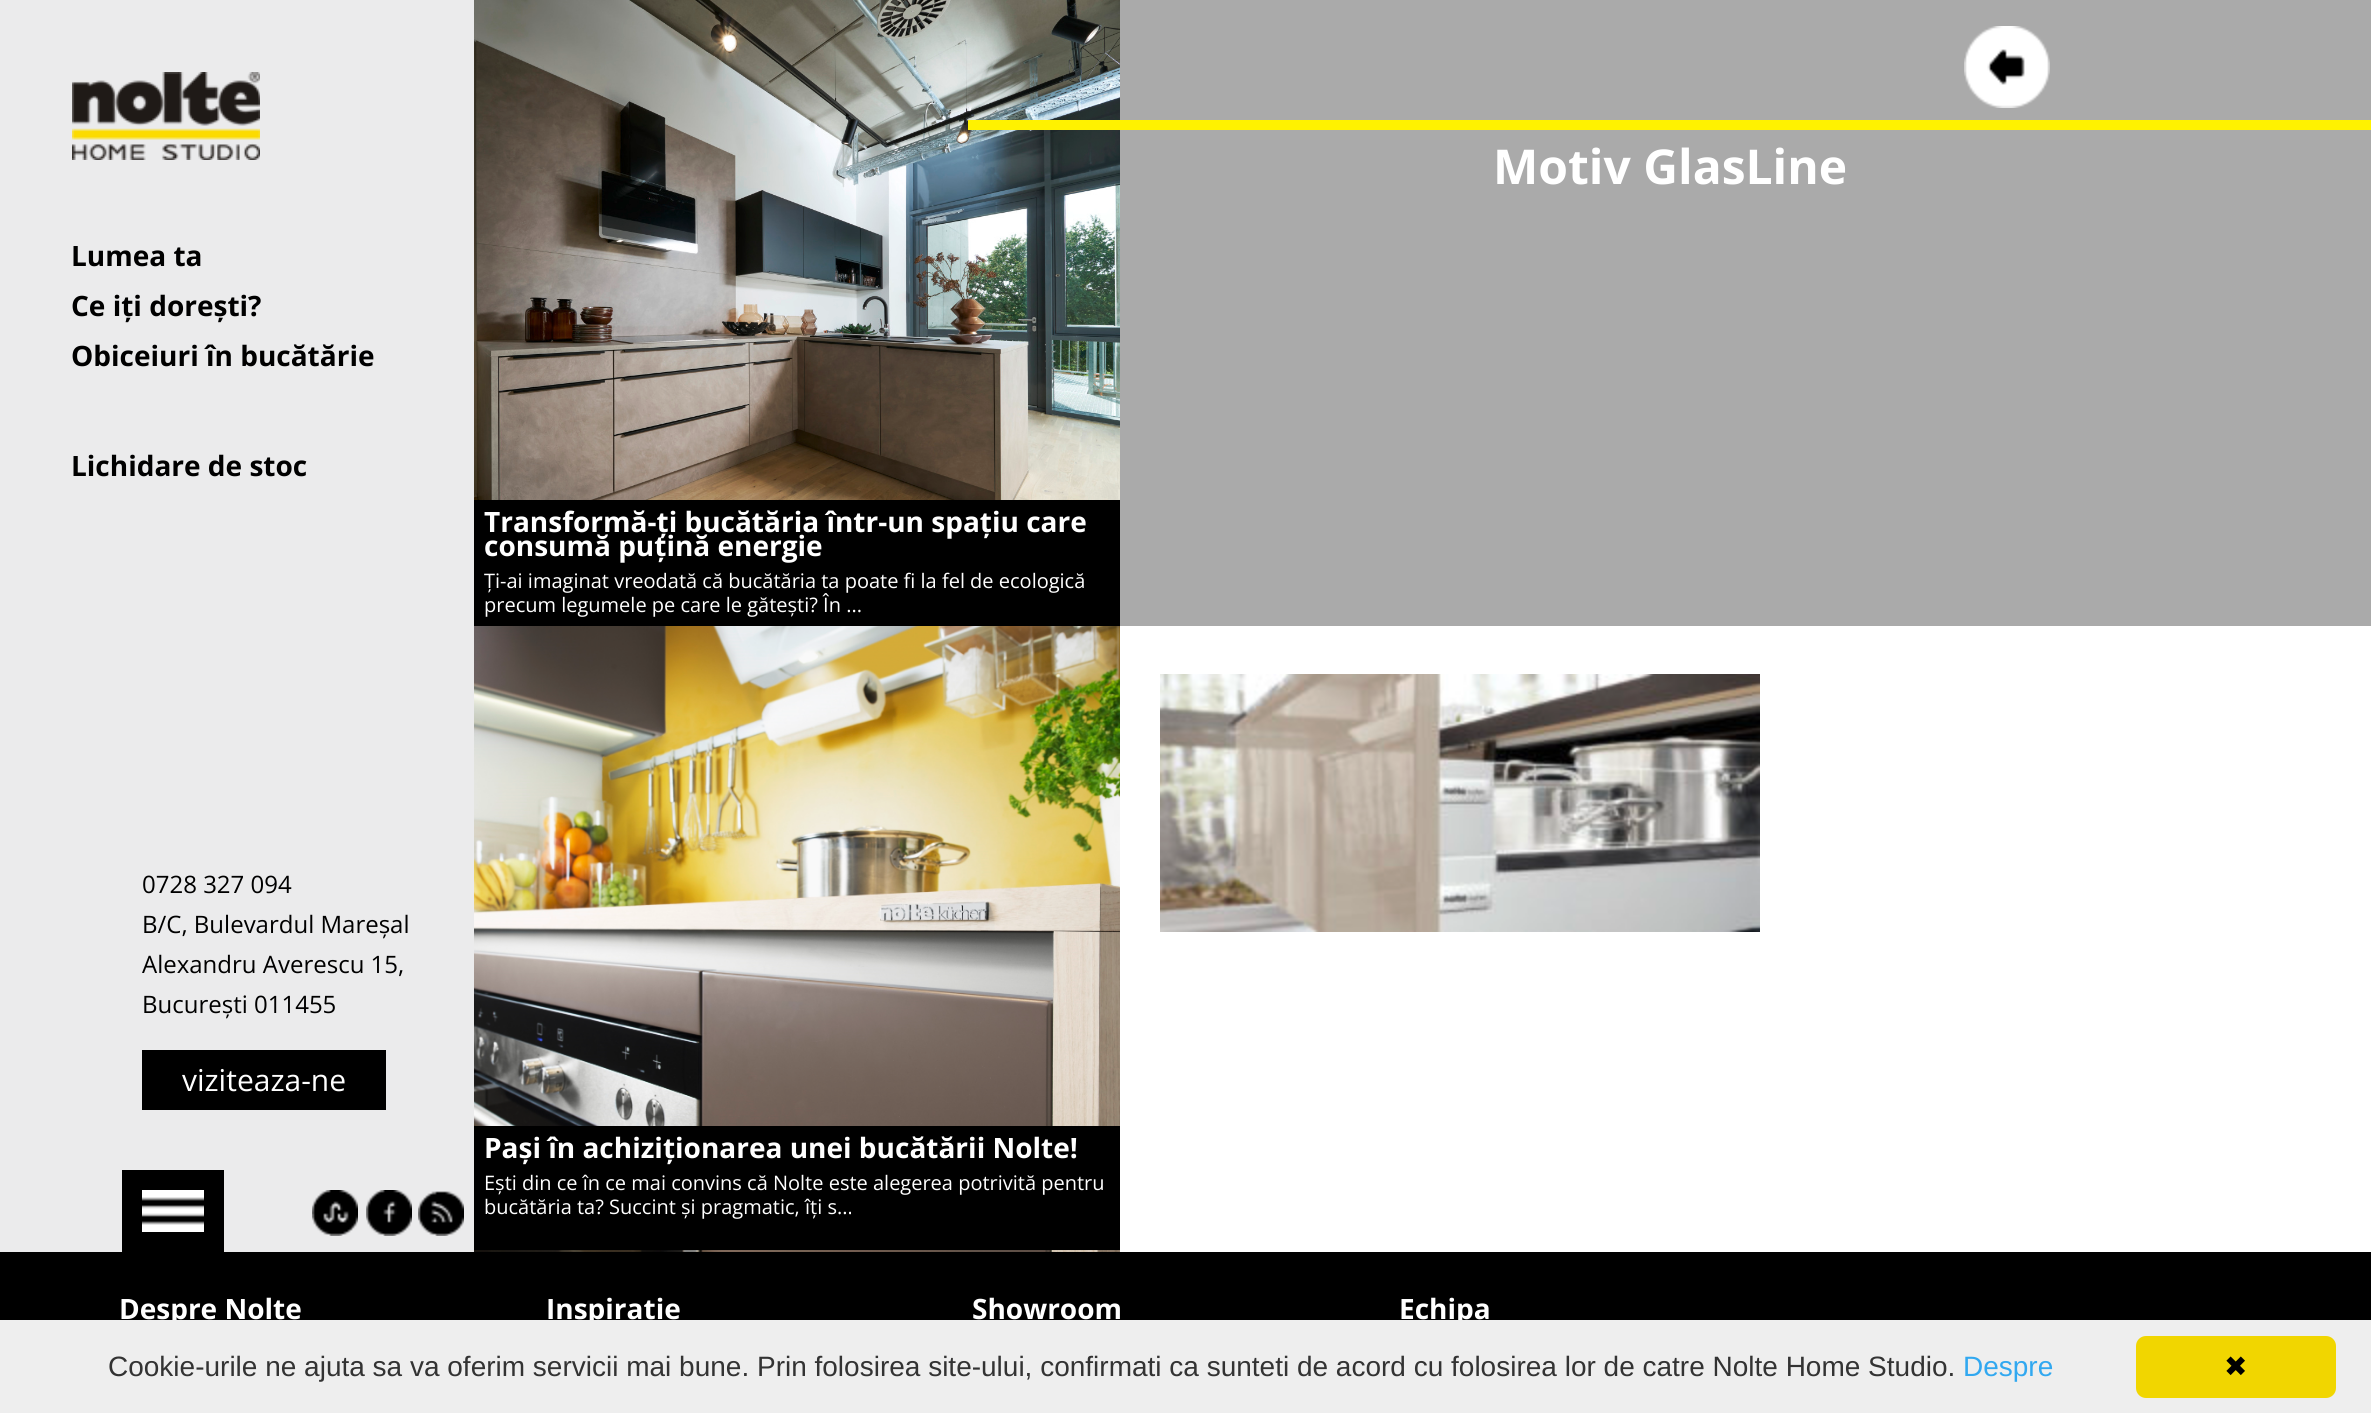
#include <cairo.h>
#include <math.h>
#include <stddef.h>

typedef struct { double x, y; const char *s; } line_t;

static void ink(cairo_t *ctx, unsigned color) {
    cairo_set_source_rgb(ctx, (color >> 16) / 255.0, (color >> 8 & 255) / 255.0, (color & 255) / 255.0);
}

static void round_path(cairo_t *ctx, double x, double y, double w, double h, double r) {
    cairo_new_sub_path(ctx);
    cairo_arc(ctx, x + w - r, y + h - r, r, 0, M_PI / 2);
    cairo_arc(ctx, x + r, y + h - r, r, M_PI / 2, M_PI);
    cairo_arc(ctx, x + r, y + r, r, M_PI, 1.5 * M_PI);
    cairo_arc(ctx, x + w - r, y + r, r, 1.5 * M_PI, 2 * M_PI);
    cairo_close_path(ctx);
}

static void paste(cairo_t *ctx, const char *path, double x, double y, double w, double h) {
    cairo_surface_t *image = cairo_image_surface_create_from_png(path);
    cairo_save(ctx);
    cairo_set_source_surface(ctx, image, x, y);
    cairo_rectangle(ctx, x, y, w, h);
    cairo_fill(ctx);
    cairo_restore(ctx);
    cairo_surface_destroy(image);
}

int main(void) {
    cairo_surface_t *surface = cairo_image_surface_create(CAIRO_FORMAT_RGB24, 2371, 1413);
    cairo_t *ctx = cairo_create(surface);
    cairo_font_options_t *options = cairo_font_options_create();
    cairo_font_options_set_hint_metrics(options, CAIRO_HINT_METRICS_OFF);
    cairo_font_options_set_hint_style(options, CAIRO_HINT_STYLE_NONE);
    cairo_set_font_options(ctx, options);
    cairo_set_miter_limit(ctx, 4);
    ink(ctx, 0xEBEBEC);
    cairo_paint(ctx);
    paste(ctx, "media/1.png", 72, 72, 188, 88);
    cairo_select_font_face(ctx, "Open Sans", CAIRO_FONT_SLANT_NORMAL, CAIRO_FONT_WEIGHT_BOLD);
    cairo_set_font_size(ctx, 28);
    ink(ctx, 0x000000);
    {
        static const line_t items[] = {
            {71, 266, "Lumea ta"},
            {71, 316, "Ce iți dorești?"},
            {71, 366, "Obiceiuri în bucătărie"},
            {71, 476, "Lichidare de stoc"},
        };
        for (size_t i = 0; i < sizeof items / sizeof *items; i++) {
            cairo_move_to(ctx, items[i].x, items[i].y);
            cairo_show_text(ctx, items[i].s);
        }
    }
    cairo_select_font_face(ctx, "Open Sans", CAIRO_FONT_SLANT_NORMAL, CAIRO_FONT_WEIGHT_NORMAL);
    cairo_set_font_size(ctx, 24);
    {
        static const line_t items[] = {
            {142, 893, "0728 327 094"},
            {142, 933, "B/C, Bulevardul Mareșal"},
            {142, 973, "Alexandru Averescu 15,"},
            {142, 1013, "București 011455"},
        };
        for (size_t i = 0; i < sizeof items / sizeof *items; i++) {
            cairo_move_to(ctx, items[i].x, items[i].y);
            cairo_show_text(ctx, items[i].s);
        }
    }
    cairo_rectangle(ctx, 142, 1050, 244, 60);
    cairo_fill(ctx);
    cairo_set_font_size(ctx, 30);
    ink(ctx, 0xFFFFFF);
    cairo_move_to(ctx, 182, 1091);
    cairo_show_text(ctx, "viziteaza-ne");
    ink(ctx, 0x000000);
    cairo_rectangle(ctx, 122, 1170, 102, 82);
    cairo_fill(ctx);
    paste(ctx, "media/2.png", 142, 1190, 62, 42);
    paste(ctx, "media/3.png", 312, 1190, 46, 46);
    paste(ctx, "media/4.png", 366, 1190, 46, 46);
    paste(ctx, "media/5.png", 418, 1191, 46, 45);
    ink(ctx, 0xAAAAAA);
    cairo_rectangle(ctx, 1120, 0, 1251, 626);
    cairo_fill(ctx);
    paste(ctx, "media/6.png", 1964, 26, 86, 82);
    paste(ctx, "media/7.png", 474, 0, 646, 500);
    ink(ctx, 0xFFF200);
    cairo_rectangle(ctx, 968, 120, 1403, 10);
    cairo_fill(ctx);
    cairo_select_font_face(ctx, "Open Sans", CAIRO_FONT_SLANT_NORMAL, CAIRO_FONT_WEIGHT_BOLD);
    cairo_set_font_size(ctx, 48);
    ink(ctx, 0xFFFFFF);
    cairo_move_to(ctx, 1493, 184);
    cairo_show_text(ctx, "Motiv GlasLine");
    ink(ctx, 0x000000);
    cairo_rectangle(ctx, 474, 500, 646, 126);
    cairo_fill(ctx);
    cairo_set_font_size(ctx, 28);
    ink(ctx, 0xFFFFFF);
    cairo_move_to(ctx, 484, 532);
    cairo_show_text(ctx, "Transformă-ți bucătăria într-un spațiu care");
    cairo_move_to(ctx, 484, 556);
    cairo_show_text(ctx, "consumă puțină energie");
    cairo_select_font_face(ctx, "Open Sans", CAIRO_FONT_SLANT_NORMAL, CAIRO_FONT_WEIGHT_NORMAL);
    cairo_set_font_size(ctx, 20);
    cairo_move_to(ctx, 484, 588);
    cairo_show_text(ctx, "Ți-ai imaginat vreodată că bucătăria ta poate fi la fel de ecologică");
    cairo_move_to(ctx, 484, 612);
    cairo_show_text(ctx, "precum legumele pe care le gătești? În ...");
    paste(ctx, "media/8.png", 474, 626, 646, 626);
    ink(ctx, 0x000000);
    cairo_rectangle(ctx, 474, 1126, 646, 124);
    cairo_fill(ctx);
    cairo_select_font_face(ctx, "Open Sans", CAIRO_FONT_SLANT_NORMAL, CAIRO_FONT_WEIGHT_BOLD);
    cairo_set_font_size(ctx, 28);
    ink(ctx, 0xFFFFFF);
    cairo_move_to(ctx, 484, 1158);
    cairo_show_text(ctx, "Pași în achiziționarea unei bucătării Nolte!");
    cairo_select_font_face(ctx, "Open Sans", CAIRO_FONT_SLANT_NORMAL, CAIRO_FONT_WEIGHT_NORMAL);
    cairo_set_font_size(ctx, 20);
    cairo_move_to(ctx, 484, 1190);
    cairo_show_text(ctx, "Ești din ce în ce mai convins că Nolte este alegerea potrivită pentru");
    cairo_move_to(ctx, 484, 1214);
    cairo_show_text(ctx, "bucătăria ta? Succint și pragmatic, îți s...");
    cairo_rectangle(ctx, 1120, 626, 1251, 626);
    cairo_fill(ctx);
    paste(ctx, "media/9.png", 1160, 674, 600, 258);
    ink(ctx, 0x000000);
    cairo_rectangle(ctx, 0, 1252, 2371, 68);
    cairo_fill(ctx);
    cairo_select_font_face(ctx, "Open Sans", CAIRO_FONT_SLANT_NORMAL, CAIRO_FONT_WEIGHT_BOLD);
    cairo_set_font_size(ctx, 28);
    ink(ctx, 0xFFFFFF);
    {
        static const line_t items[] = {
            {119, 1319, "Despre Nolte"},
            {546, 1319, "Inspiratie"},
            {972, 1319, "Showroom"},
            {1399, 1319, "Echipa"},
        };
        for (size_t i = 0; i < sizeof items / sizeof *items; i++) {
            cairo_move_to(ctx, items[i].x, items[i].y);
            cairo_show_text(ctx, items[i].s);
        }
    }
    ink(ctx, 0xEEEEEE);
    cairo_rectangle(ctx, 0, 1320, 2371, 93);
    cairo_fill(ctx);
    cairo_select_font_face(ctx, "Liberation Sans", CAIRO_FONT_SLANT_NORMAL, CAIRO_FONT_WEIGHT_NORMAL);
    ink(ctx, 0x333333);
    cairo_move_to(ctx, 108, 1376);
    cairo_show_text(ctx, "Cookie-urile ne ajuta sa va oferim servicii mai bune. Prin folosirea site-ului, confirmati ca sunteti de acord cu folosirea lor de catre Nolte Home Studio.");
    ink(ctx, 0x31A8F0);
    cairo_move_to(ctx, 1963, 1376);
    cairo_show_text(ctx, "Despre");
    ink(ctx, 0xF1D600);
    round_path(ctx, 2136, 1336, 200, 62, 10);
    cairo_fill(ctx);
    cairo_select_font_face(ctx, "DejaVu Sans", CAIRO_FONT_SLANT_NORMAL, CAIRO_FONT_WEIGHT_NORMAL);
    ink(ctx, 0x000000);
    cairo_move_to(ctx, 2224, 1376);
    cairo_show_text(ctx, "✖");
    cairo_surface_write_to_png(surface, "image.png");
    cairo_font_options_destroy(options);
    cairo_destroy(ctx);
    cairo_surface_destroy(surface);
    return 0;
}
